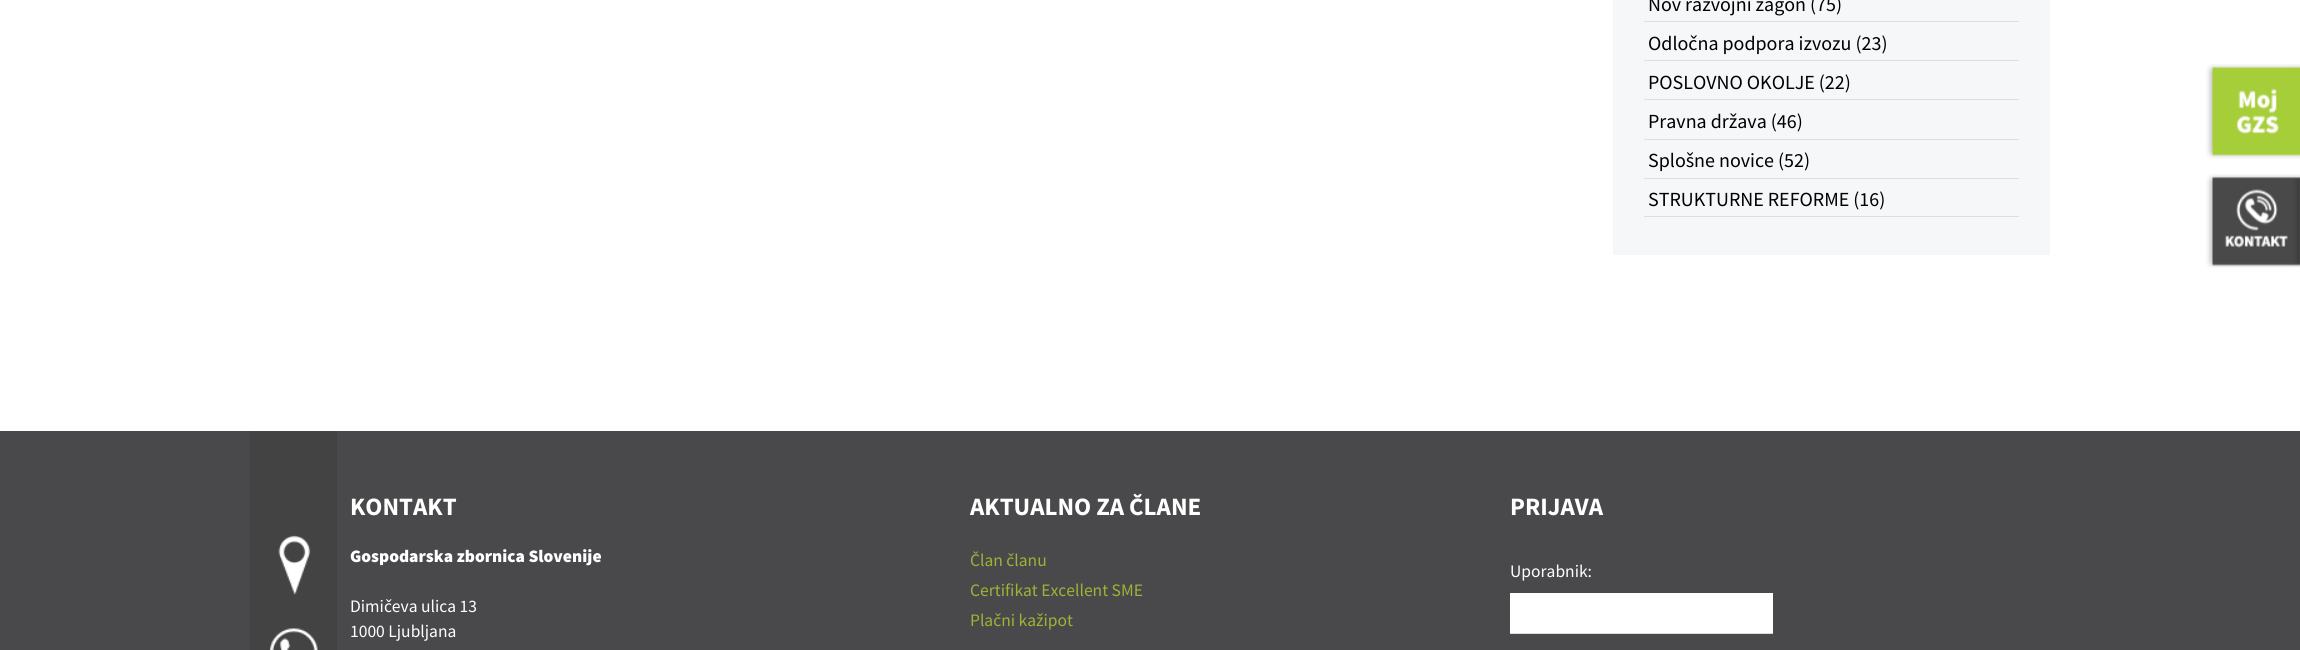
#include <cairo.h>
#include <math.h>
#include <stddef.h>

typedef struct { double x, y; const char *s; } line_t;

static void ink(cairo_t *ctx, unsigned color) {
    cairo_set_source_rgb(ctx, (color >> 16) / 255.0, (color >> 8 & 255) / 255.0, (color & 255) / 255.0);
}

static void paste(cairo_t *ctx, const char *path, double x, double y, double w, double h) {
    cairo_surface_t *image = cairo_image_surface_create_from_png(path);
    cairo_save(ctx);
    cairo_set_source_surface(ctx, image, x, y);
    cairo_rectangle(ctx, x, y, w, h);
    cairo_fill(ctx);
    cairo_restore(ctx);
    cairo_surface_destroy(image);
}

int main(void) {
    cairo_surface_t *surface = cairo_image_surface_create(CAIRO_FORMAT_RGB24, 2300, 650);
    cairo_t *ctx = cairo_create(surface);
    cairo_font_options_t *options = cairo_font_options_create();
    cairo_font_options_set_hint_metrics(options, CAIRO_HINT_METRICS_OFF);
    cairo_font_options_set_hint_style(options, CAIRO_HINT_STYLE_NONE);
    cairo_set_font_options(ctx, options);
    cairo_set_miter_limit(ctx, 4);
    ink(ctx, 0xFFFFFF);
    cairo_paint(ctx);
    ink(ctx, 0xF6F7F8);
    cairo_rectangle(ctx, 1613, 0, 437, 255);
    cairo_fill(ctx);
    ink(ctx, 0xDADFE3);
    cairo_rectangle(ctx, 1644, 21, 375, 1);
    cairo_fill(ctx);
    cairo_select_font_face(ctx, "Source Sans Pro", CAIRO_FONT_SLANT_NORMAL, CAIRO_FONT_WEIGHT_NORMAL);
    cairo_set_font_size(ctx, 20);
    ink(ctx, 0x000000);
    cairo_move_to(ctx, 1648, 11);
    cairo_show_text(ctx, "Nov razvojni zagon (75)");
    ink(ctx, 0xDADFE3);
    cairo_rectangle(ctx, 1644, 60, 375, 1);
    cairo_fill(ctx);
    ink(ctx, 0x000000);
    cairo_move_to(ctx, 1648, 50);
    cairo_show_text(ctx, "Odločna podpora izvozu (23)");
    ink(ctx, 0xDADFE3);
    cairo_rectangle(ctx, 1644, 99, 375, 1);
    cairo_fill(ctx);
    ink(ctx, 0x000000);
    cairo_move_to(ctx, 1648, 89);
    cairo_show_text(ctx, "POSLOVNO OKOLJE (22)");
    ink(ctx, 0xDADFE3);
    cairo_rectangle(ctx, 1644, 139, 375, 1);
    cairo_fill(ctx);
    ink(ctx, 0x000000);
    cairo_move_to(ctx, 1648, 128);
    cairo_show_text(ctx, "Pravna država (46)");
    ink(ctx, 0xDADFE3);
    cairo_rectangle(ctx, 1644, 178, 375, 1);
    cairo_fill(ctx);
    ink(ctx, 0x000000);
    cairo_move_to(ctx, 1648, 167);
    cairo_show_text(ctx, "Splošne novice (52)");
    ink(ctx, 0xDADFE3);
    cairo_rectangle(ctx, 1644, 216, 375, 1);
    cairo_fill(ctx);
    ink(ctx, 0x000000);
    cairo_move_to(ctx, 1648, 206);
    cairo_show_text(ctx, "STRUKTURNE REFORME (16)");
    paste(ctx, "media/1.png", 2206, 64, 94, 95);
    paste(ctx, "media/2.png", 2206, 174, 94, 94);
    ink(ctx, 0x49494B);
    cairo_rectangle(ctx, 0, 431, 2300, 219);
    cairo_fill(ctx);
    paste(ctx, "media/3.png", 250, 431, 87, 219);
    cairo_select_font_face(ctx, "Source Sans Pro", CAIRO_FONT_SLANT_NORMAL, CAIRO_FONT_WEIGHT_BOLD);
    cairo_set_font_size(ctx, 25);
    ink(ctx, 0xFFFFFF);
    cairo_move_to(ctx, 350, 515);
    cairo_show_text(ctx, "KONTAKT");
    cairo_select_font_face(ctx, "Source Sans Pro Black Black", CAIRO_FONT_SLANT_NORMAL, CAIRO_FONT_WEIGHT_NORMAL);
    cairo_set_font_size(ctx, 17.5);
    cairo_move_to(ctx, 350, 562);
    cairo_show_text(ctx, "Gospodarska zbornica Slovenije");
    cairo_select_font_face(ctx, "Source Sans Pro", CAIRO_FONT_SLANT_NORMAL, CAIRO_FONT_WEIGHT_NORMAL);
    cairo_move_to(ctx, 350, 612);
    cairo_show_text(ctx, "Dimičeva ulica 13");
    cairo_move_to(ctx, 350, 637);
    cairo_show_text(ctx, "1000 Ljubljana");
    cairo_select_font_face(ctx, "Source Sans Pro", CAIRO_FONT_SLANT_NORMAL, CAIRO_FONT_WEIGHT_BOLD);
    cairo_set_font_size(ctx, 25);
    cairo_move_to(ctx, 970, 515);
    cairo_show_text(ctx, "AKTUALNO ZA ČLANE");
    cairo_select_font_face(ctx, "Source Sans Pro", CAIRO_FONT_SLANT_NORMAL, CAIRO_FONT_WEIGHT_NORMAL);
    cairo_set_font_size(ctx, 17.5);
    ink(ctx, 0xA1B135);
    {
        static const line_t items[] = {
            {970, 566, "Član članu"},
            {970, 596, "Certifikat Excellent SME"},
            {970, 626, "Plačni kažipot"},
        };
        for (size_t i = 0; i < sizeof items / sizeof *items; i++) {
            cairo_move_to(ctx, items[i].x, items[i].y);
            cairo_show_text(ctx, items[i].s);
        }
    }
    cairo_select_font_face(ctx, "Source Sans Pro", CAIRO_FONT_SLANT_NORMAL, CAIRO_FONT_WEIGHT_BOLD);
    cairo_set_font_size(ctx, 25);
    ink(ctx, 0xFFFFFF);
    cairo_move_to(ctx, 1510, 515);
    cairo_show_text(ctx, "PRIJAVA");
    cairo_select_font_face(ctx, "Source Sans Pro", CAIRO_FONT_SLANT_NORMAL, CAIRO_FONT_WEIGHT_NORMAL);
    cairo_set_font_size(ctx, 17.5);
    cairo_move_to(ctx, 1510, 577);
    cairo_show_text(ctx, "Uporabnik:");
    ink(ctx, 0xDBDBDB);
    cairo_new_path(ctx);
    cairo_move_to(ctx, 1510, 632);
    cairo_line_to(ctx, 1510, 634);
    cairo_line_to(ctx, 1773, 634);
    cairo_line_to(ctx, 1773, 594);
    cairo_line_to(ctx, 1772, 594);
    cairo_line_to(ctx, 1772, 632);
    cairo_close_path(ctx);
    cairo_fill(ctx);
    ink(ctx, 0xFFFFFF);
    cairo_rectangle(ctx, 1510, 593, 263, 40);
    cairo_fill(ctx);
    cairo_surface_write_to_png(surface, "image.png");
    cairo_font_options_destroy(options);
    cairo_destroy(ctx);
    cairo_surface_destroy(surface);
    return 0;
}
